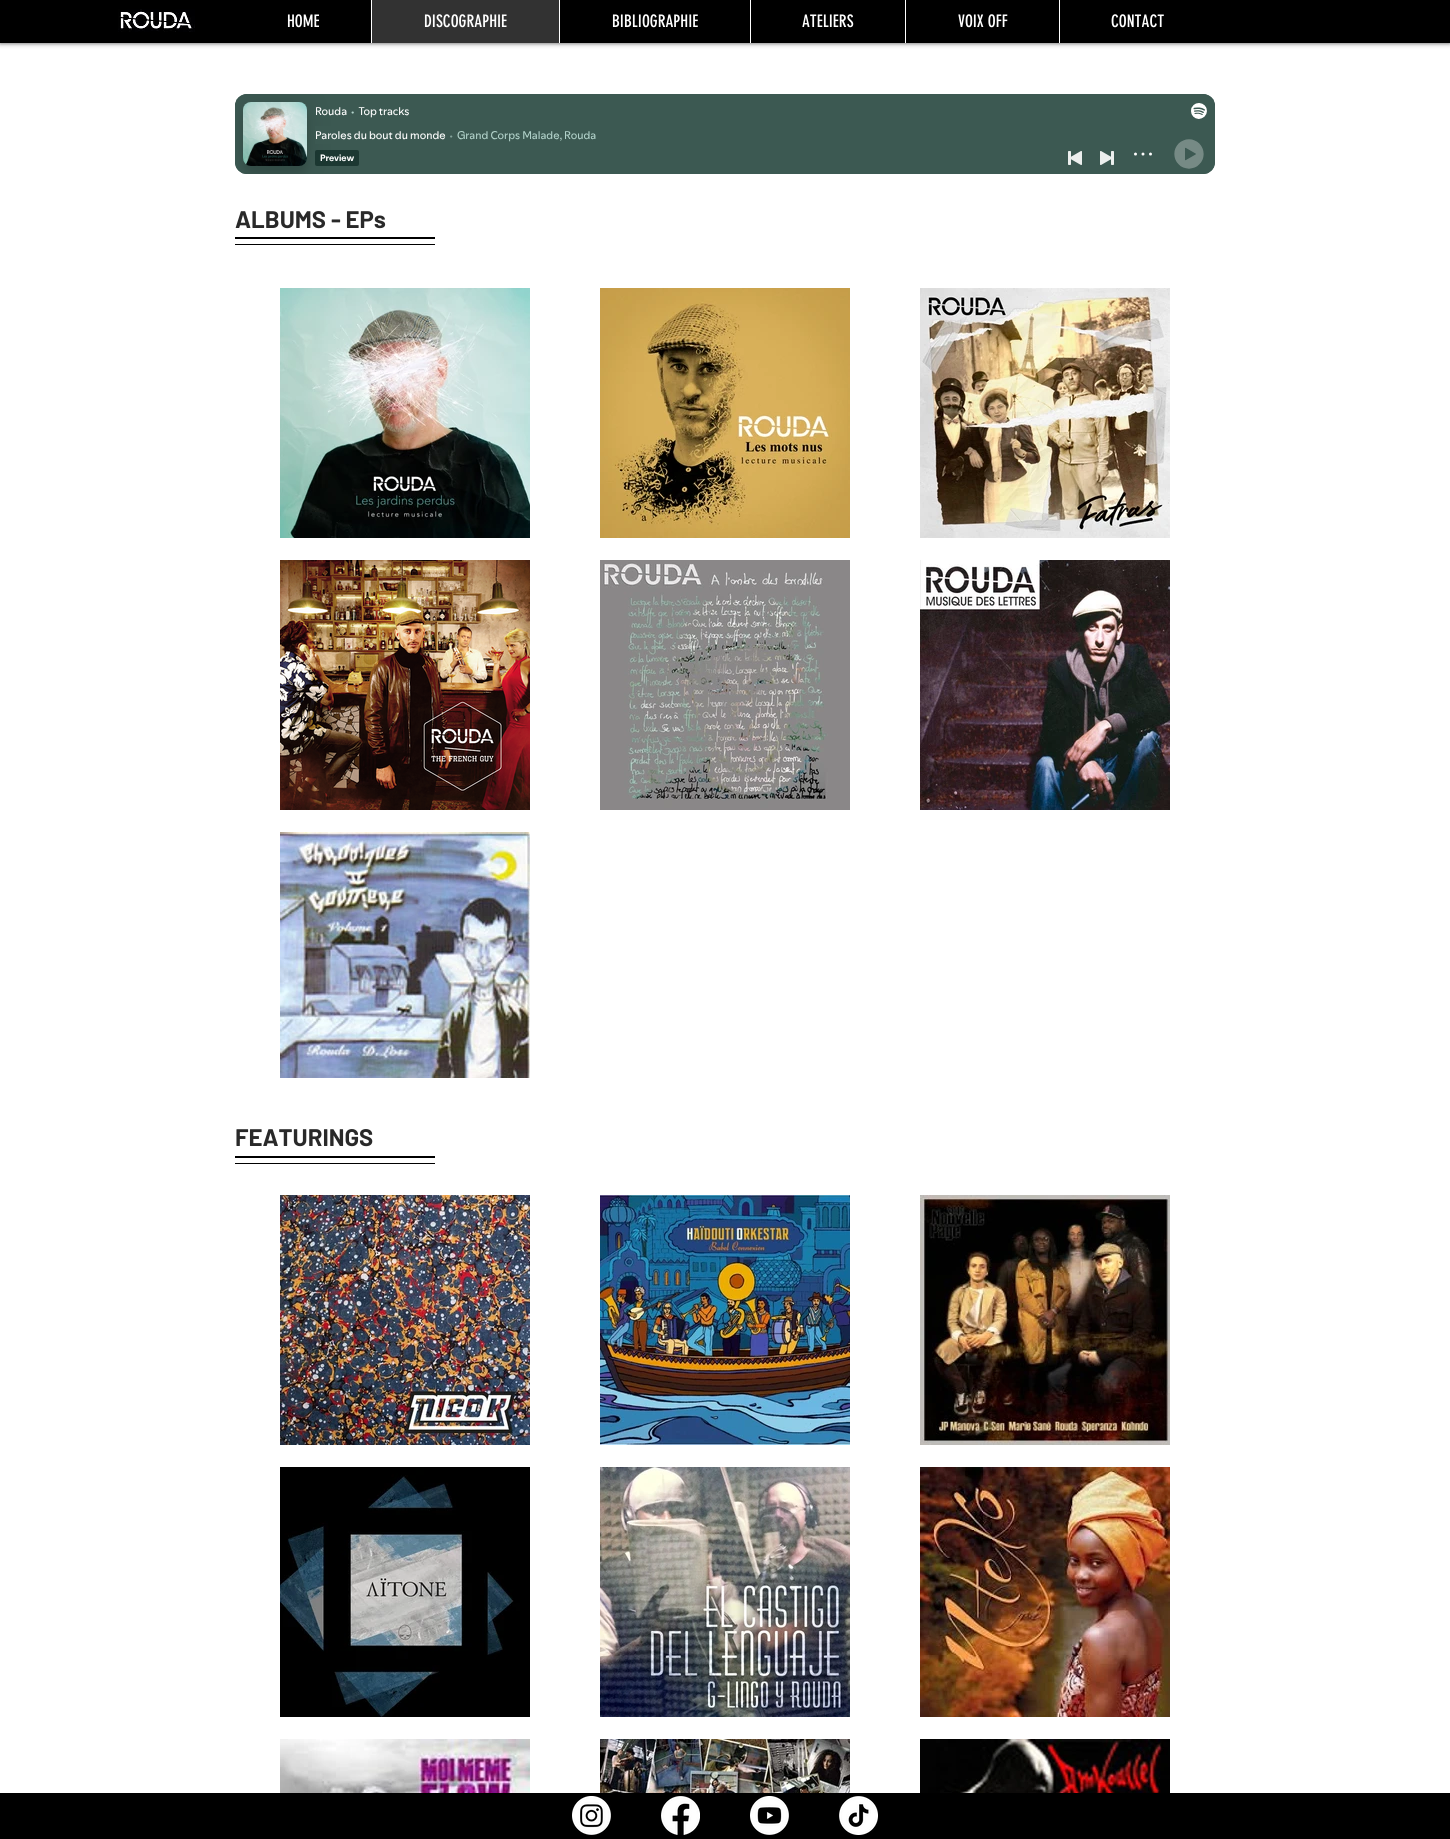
#include <cairo.h>
#include <math.h>
#include <stddef.h>


static void ink(cairo_t *ctx, unsigned color) {
    cairo_set_source_rgb(ctx, (color >> 16) / 255.0, (color >> 8 & 255) / 255.0, (color & 255) / 255.0);
}

static void round_path(cairo_t *ctx, double x, double y, double w, double h, double r) {
    cairo_new_sub_path(ctx);
    cairo_arc(ctx, x + w - r, y + h - r, r, 0, M_PI / 2);
    cairo_arc(ctx, x + r, y + h - r, r, M_PI / 2, M_PI);
    cairo_arc(ctx, x + r, y + r, r, M_PI, 1.5 * M_PI);
    cairo_arc(ctx, x + w - r, y + r, r, 1.5 * M_PI, 2 * M_PI);
    cairo_close_path(ctx);
}

static void blur_box(cairo_t *ctx, double x, double y, double w, double h, double r, double blur, double alpha) {
    cairo_push_group_with_content(ctx, CAIRO_CONTENT_ALPHA);
    cairo_set_operator(ctx, CAIRO_OPERATOR_SOURCE);
    for (int i = 15; i >= -15 && fmin(w, h) + blur * i / 3 > 0; i -= 2) {
        double e = blur * i / 6;
        cairo_set_source_rgba(ctx, 0, 0, 0, alpha * erfc((i - 1) / 8.5) / 2);
        round_path(ctx, x - e, y - e, w + 2 * e, h + 2 * e, fmax(0, fmin(r + e + blur * .6, fmin(w, h) / 2 + e)));
        cairo_fill(ctx);
    }
    cairo_pattern_t *soft = cairo_pop_group(ctx);
    cairo_mask(ctx, soft);
    cairo_pattern_destroy(soft);
}

static void paste(cairo_t *ctx, const char *path, double x, double y, double w, double h) {
    cairo_surface_t *image = cairo_image_surface_create_from_png(path);
    cairo_save(ctx);
    cairo_set_source_surface(ctx, image, x, y);
    cairo_rectangle(ctx, x, y, w, h);
    cairo_fill(ctx);
    cairo_restore(ctx);
    cairo_surface_destroy(image);
}

int main(void) {
    cairo_surface_t *surface = cairo_image_surface_create(CAIRO_FORMAT_RGB24, 1450, 1839);
    cairo_t *ctx = cairo_create(surface);
    cairo_font_options_t *options = cairo_font_options_create();
    cairo_font_options_set_hint_metrics(options, CAIRO_HINT_METRICS_OFF);
    cairo_font_options_set_hint_style(options, CAIRO_HINT_STYLE_NONE);
    cairo_set_font_options(ctx, options);
    cairo_set_miter_limit(ctx, 4);
    ink(ctx, 0xFFFFFF);
    cairo_paint(ctx);
    ink(ctx, 0x000000);
    blur_box(ctx, 0, 0, 1450, 43, 0, 2.5, 0.7);
    ink(ctx, 0x000000);
    cairo_rectangle(ctx, 0, 0, 1450, 43);
    cairo_fill(ctx);
    paste(ctx, "media/1.png", 118, 9, 77, 23);
    cairo_select_font_face(ctx, "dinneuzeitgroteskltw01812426", CAIRO_FONT_SLANT_NORMAL, CAIRO_FONT_WEIGHT_NORMAL);
    cairo_set_font_size(ctx, 17);
    ink(ctx, 0xFFFFFF);
    cairo_move_to(ctx, 287, 27);
    cairo_show_text(ctx, "HOME");
    ink(ctx, 0x323232);
    cairo_rectangle(ctx, 372, 0, 187, 43);
    cairo_fill(ctx);
    ink(ctx, 0xFFFFFF);
    cairo_rectangle(ctx, 371, 0, 1, 43);
    cairo_fill(ctx);
    cairo_move_to(ctx, 424, 27);
    cairo_show_text(ctx, "DISCOGRAPHIE");
    cairo_rectangle(ctx, 559, 0, 1, 43);
    cairo_fill(ctx);
    cairo_move_to(ctx, 612, 27);
    cairo_show_text(ctx, "BIBLIOGRAPHIE");
    cairo_rectangle(ctx, 750, 0, 1, 43);
    cairo_fill(ctx);
    cairo_move_to(ctx, 802, 27);
    cairo_show_text(ctx, "ATELIERS");
    cairo_rectangle(ctx, 905, 0, 1, 43);
    cairo_fill(ctx);
    cairo_move_to(ctx, 958, 27);
    cairo_show_text(ctx, "VOIX OFF");
    cairo_rectangle(ctx, 1059, 0, 1, 43);
    cairo_fill(ctx);
    cairo_move_to(ctx, 1111, 27);
    cairo_show_text(ctx, "CONTACT");
    paste(ctx, "media/2.png", 235, 94, 980, 80);
    cairo_select_font_face(ctx, "Barlow", CAIRO_FONT_SLANT_NORMAL, CAIRO_FONT_WEIGHT_BOLD);
    cairo_set_font_size(ctx, 24);
    ink(ctx, 0x292929);
    cairo_move_to(ctx, 235, 228);
    cairo_show_text(ctx, "ALBUMS - EPs");
    ink(ctx, 0x000000);
    cairo_rectangle(ctx, 235, 237, 200, 2);
    cairo_fill(ctx);
    cairo_rectangle(ctx, 235, 244, 200, 1);
    cairo_fill(ctx);
    paste(ctx, "media/3.png", 280, 288, 250, 250);
    paste(ctx, "media/4.png", 600, 288, 250, 250);
    paste(ctx, "media/5.png", 920, 288, 250, 250);
    paste(ctx, "media/6.png", 280, 560, 250, 250);
    paste(ctx, "media/7.png", 600, 560, 250, 250);
    paste(ctx, "media/8.png", 920, 560, 250, 250);
    paste(ctx, "media/9.png", 280, 832, 250, 246);
    ink(ctx, 0x292929);
    cairo_move_to(ctx, 235, 1146);
    cairo_show_text(ctx, "FEATURINGS");
    ink(ctx, 0x000000);
    cairo_rectangle(ctx, 235, 1156, 200, 2);
    cairo_fill(ctx);
    cairo_rectangle(ctx, 235, 1163, 200, 1);
    cairo_fill(ctx);
    paste(ctx, "media/10.png", 280, 1195, 250, 250);
    paste(ctx, "media/11.png", 600, 1195, 250, 250);
    paste(ctx, "media/12.png", 920, 1195, 250, 250);
    paste(ctx, "media/13.png", 280, 1467, 250, 250);
    paste(ctx, "media/14.png", 600, 1467, 250, 250);
    paste(ctx, "media/15.png", 920, 1467, 250, 250);
    paste(ctx, "media/16.png", 280, 1739, 250, 54);
    paste(ctx, "media/17.png", 600, 1739, 250, 54);
    paste(ctx, "media/18.png", 920, 1739, 250, 54);
    cairo_rectangle(ctx, 0, 1793, 1450, 46);
    cairo_fill(ctx);
    paste(ctx, "media/19.png", 572, 1796, 39, 39);
    paste(ctx, "media/20.png", 661, 1796, 39, 39);
    paste(ctx, "media/21.png", 750, 1796, 39, 39);
    paste(ctx, "media/22.png", 839, 1796, 39, 39);
    cairo_surface_write_to_png(surface, "image.png");
    cairo_font_options_destroy(options);
    cairo_destroy(ctx);
    cairo_surface_destroy(surface);
    return 0;
}
